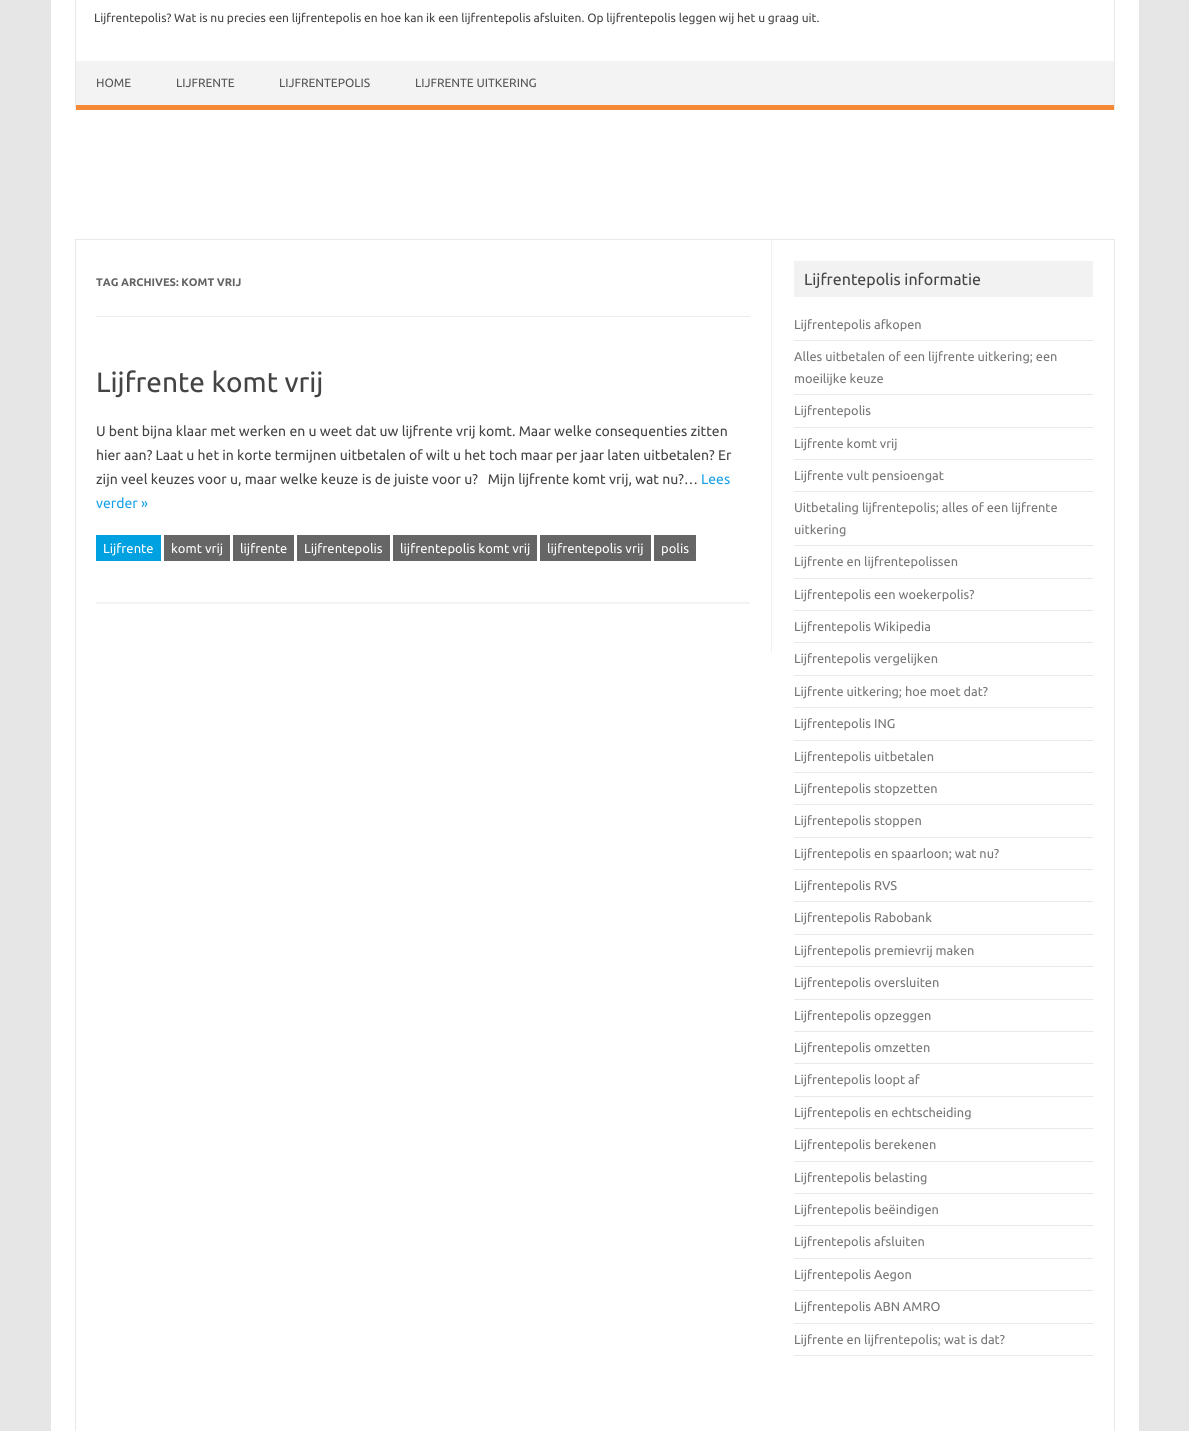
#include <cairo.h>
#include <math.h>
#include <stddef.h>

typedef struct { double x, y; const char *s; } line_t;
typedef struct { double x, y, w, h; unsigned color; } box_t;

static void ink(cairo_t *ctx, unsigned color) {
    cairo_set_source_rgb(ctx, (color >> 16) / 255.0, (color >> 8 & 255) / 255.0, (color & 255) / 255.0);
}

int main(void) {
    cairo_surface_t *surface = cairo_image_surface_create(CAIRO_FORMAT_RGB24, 1189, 1431);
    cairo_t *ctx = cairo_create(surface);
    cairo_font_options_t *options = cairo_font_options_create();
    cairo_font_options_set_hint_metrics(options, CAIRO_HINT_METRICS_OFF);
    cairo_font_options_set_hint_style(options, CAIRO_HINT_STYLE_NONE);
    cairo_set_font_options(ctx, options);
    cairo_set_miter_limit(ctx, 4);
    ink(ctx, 0xE6E6E6);
    cairo_paint(ctx);
    {
        static const box_t items[] = {
            {51, 0, 1088, 1431, 0xFFFFFF},
            {1114, 0, 1, 110, 0xE9E9E9},
            {75, 0, 1, 110, 0xE9E9E9},
        };
        for (size_t i = 0; i < sizeof items / sizeof *items; i++) {
            ink(ctx, items[i].color);
            cairo_rectangle(ctx, items[i].x, items[i].y, items[i].w, items[i].h);
            cairo_fill(ctx);
        }
    }
    cairo_select_font_face(ctx, "Ubuntu", CAIRO_FONT_SLANT_NORMAL, CAIRO_FONT_WEIGHT_NORMAL);
    cairo_set_font_size(ctx, 12);
    ink(ctx, 0x444444);
    cairo_move_to(ctx, 94, 22);
    cairo_show_text(ctx, "Lijfrentepolis? Wat is nu precies een lijfrentepolis en hoe kan ik een lijfrentepolis afsluiten. Op lijfrentepolis leggen wij het u graag uit.");
    ink(ctx, 0xF3F3F3);
    cairo_rectangle(ctx, 76, 61, 1038, 44);
    cairo_fill(ctx);
    ink(ctx, 0xF48938);
    cairo_rectangle(ctx, 76, 105, 1038, 5);
    cairo_fill(ctx);
    ink(ctx, 0x555555);
    {
        static const line_t items[] = {
            {96, 87, "HOME"},
            {176, 87, "LIJFRENTE"},
            {279, 87, "LIJFRENTEPOLIS"},
            {415, 87, "LIJFRENTE UITKERING"},
        };
        for (size_t i = 0; i < sizeof items / sizeof *items; i++) {
            cairo_move_to(ctx, items[i].x, items[i].y);
            cairo_show_text(ctx, items[i].s);
        }
    }
    cairo_rectangle(ctx, 75.5, 239.5, 1039, 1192);
    ink(ctx, 0xE9E9E9);
    cairo_set_line_width(ctx, 1);
    cairo_stroke(ctx);
    ink(ctx, 0xF1F1F1);
    cairo_rectangle(ctx, 771, 240, 1, 413);
    cairo_fill(ctx);
    ink(ctx, 0xEDEDED);
    cairo_rectangle(ctx, 96, 316, 654, 1);
    cairo_fill(ctx);
    cairo_select_font_face(ctx, "Ubuntu", CAIRO_FONT_SLANT_NORMAL, CAIRO_FONT_WEIGHT_BOLD);
    cairo_set_font_size(ctx, 11);
    ink(ctx, 0x636363);
    cairo_move_to(ctx, 96, 286);
    cairo_show_text(ctx, "TAG ARCHIVES: KOMT VRIJ");
    ink(ctx, 0xF3F3F3);
    cairo_rectangle(ctx, 96, 602, 654, 2);
    cairo_fill(ctx);
    cairo_select_font_face(ctx, "Ubuntu", CAIRO_FONT_SLANT_NORMAL, CAIRO_FONT_WEIGHT_NORMAL);
    cairo_set_font_size(ctx, 28);
    ink(ctx, 0x444444);
    cairo_move_to(ctx, 96, 392);
    cairo_show_text(ctx, "Lijfrente komt vrij");
    cairo_set_font_size(ctx, 14);
    {
        static const line_t items[] = {
            {96, 436, "U bent bijna klaar met werken en u weet dat uw lijfrente vrij komt. Maar welke consequenties zitten"},
            {96, 460, "hier aan? Laat u het in korte termijnen uitbetalen of wilt u het toch maar per jaar laten uitbetalen? Er"},
            {96, 484, "zijn veel keuzes voor u, maar welke keuze is de juiste voor u?   Mijn lijfrente komt vrij, wat nu?…"},
        };
        for (size_t i = 0; i < sizeof items / sizeof *items; i++) {
            cairo_move_to(ctx, items[i].x, items[i].y);
            cairo_show_text(ctx, items[i].s);
        }
    }
    ink(ctx, 0x16A1E7);
    cairo_move_to(ctx, 701, 484);
    cairo_show_text(ctx, "Lees");
    cairo_move_to(ctx, 96, 508);
    cairo_show_text(ctx, "verder »");
    ink(ctx, 0x00A1E0);
    cairo_rectangle(ctx, 96, 535, 65, 26);
    cairo_fill(ctx);
    cairo_set_font_size(ctx, 13);
    ink(ctx, 0xFFFFFF);
    cairo_move_to(ctx, 103, 553);
    cairo_show_text(ctx, "Lijfrente");
    ink(ctx, 0x666666);
    cairo_rectangle(ctx, 164, 535, 66, 26);
    cairo_fill(ctx);
    ink(ctx, 0xFFFFFF);
    cairo_move_to(ctx, 171, 553);
    cairo_show_text(ctx, "komt vrij");
    ink(ctx, 0x666666);
    cairo_rectangle(ctx, 233, 535, 61, 26);
    cairo_fill(ctx);
    ink(ctx, 0xFFFFFF);
    cairo_move_to(ctx, 240, 553);
    cairo_show_text(ctx, "lijfrente");
    ink(ctx, 0x666666);
    cairo_rectangle(ctx, 297, 535, 93, 26);
    cairo_fill(ctx);
    ink(ctx, 0xFFFFFF);
    cairo_move_to(ctx, 304, 553);
    cairo_show_text(ctx, "Lijfrentepolis");
    ink(ctx, 0x666666);
    cairo_rectangle(ctx, 393, 535, 144, 26);
    cairo_fill(ctx);
    ink(ctx, 0xFFFFFF);
    cairo_move_to(ctx, 400, 553);
    cairo_show_text(ctx, "lijfrentepolis komt vrij");
    ink(ctx, 0x666666);
    cairo_rectangle(ctx, 540, 535, 111, 26);
    cairo_fill(ctx);
    ink(ctx, 0xFFFFFF);
    cairo_move_to(ctx, 547, 553);
    cairo_show_text(ctx, "lijfrentepolis vrij");
    ink(ctx, 0x666666);
    cairo_rectangle(ctx, 654, 535, 42, 26);
    cairo_fill(ctx);
    ink(ctx, 0xFFFFFF);
    cairo_move_to(ctx, 661, 553);
    cairo_show_text(ctx, "polis");
    ink(ctx, 0xF2F2F2);
    cairo_rectangle(ctx, 794, 261, 299, 36);
    cairo_fill(ctx);
    cairo_set_font_size(ctx, 16);
    ink(ctx, 0x444444);
    cairo_move_to(ctx, 804, 285);
    cairo_show_text(ctx, "Lijfrentepolis informatie");
    ink(ctx, 0xE9E9E9);
    cairo_rectangle(ctx, 794, 340, 299, 1);
    cairo_fill(ctx);
    cairo_set_font_size(ctx, 12.75);
    ink(ctx, 0x757575);
    cairo_move_to(ctx, 794, 329);
    cairo_show_text(ctx, "Lijfrentepolis afkopen");
    ink(ctx, 0xE9E9E9);
    cairo_rectangle(ctx, 794, 394, 299, 1);
    cairo_fill(ctx);
    ink(ctx, 0x757575);
    cairo_move_to(ctx, 794, 361);
    cairo_show_text(ctx, "Alles uitbetalen of een lijfrente uitkering; een");
    cairo_move_to(ctx, 794, 383);
    cairo_show_text(ctx, "moeilijke keuze");
    ink(ctx, 0xE9E9E9);
    cairo_rectangle(ctx, 794, 427, 299, 1);
    cairo_fill(ctx);
    ink(ctx, 0x757575);
    cairo_move_to(ctx, 794, 415);
    cairo_show_text(ctx, "Lijfrentepolis");
    ink(ctx, 0xE9E9E9);
    cairo_rectangle(ctx, 794, 459, 299, 1);
    cairo_fill(ctx);
    ink(ctx, 0x757575);
    cairo_move_to(ctx, 794, 448);
    cairo_show_text(ctx, "Lijfrente komt vrij");
    ink(ctx, 0xE9E9E9);
    cairo_rectangle(ctx, 794, 491, 299, 1);
    cairo_fill(ctx);
    ink(ctx, 0x757575);
    cairo_move_to(ctx, 794, 480);
    cairo_show_text(ctx, "Lijfrente vult pensioengat");
    ink(ctx, 0xE9E9E9);
    cairo_rectangle(ctx, 794, 545, 299, 1);
    cairo_fill(ctx);
    ink(ctx, 0x757575);
    cairo_move_to(ctx, 794, 512);
    cairo_show_text(ctx, "Uitbetaling lijfrentepolis; alles of een lijfrente");
    cairo_move_to(ctx, 794, 534);
    cairo_show_text(ctx, "uitkering");
    ink(ctx, 0xE9E9E9);
    cairo_rectangle(ctx, 794, 578, 299, 1);
    cairo_fill(ctx);
    ink(ctx, 0x757575);
    cairo_move_to(ctx, 794, 566);
    cairo_show_text(ctx, "Lijfrente en lijfrentepolissen");
    ink(ctx, 0xE9E9E9);
    cairo_rectangle(ctx, 794, 610, 299, 1);
    cairo_fill(ctx);
    ink(ctx, 0x757575);
    cairo_move_to(ctx, 794, 599);
    cairo_show_text(ctx, "Lijfrentepolis een woekerpolis?");
    ink(ctx, 0xE9E9E9);
    cairo_rectangle(ctx, 794, 642, 299, 1);
    cairo_fill(ctx);
    ink(ctx, 0x757575);
    cairo_move_to(ctx, 794, 631);
    cairo_show_text(ctx, "Lijfrentepolis Wikipedia");
    ink(ctx, 0xE9E9E9);
    cairo_rectangle(ctx, 794, 675, 299, 1);
    cairo_fill(ctx);
    ink(ctx, 0x757575);
    cairo_move_to(ctx, 794, 663);
    cairo_show_text(ctx, "Lijfrentepolis vergelijken");
    ink(ctx, 0xE9E9E9);
    cairo_rectangle(ctx, 794, 707, 299, 1);
    cairo_fill(ctx);
    ink(ctx, 0x757575);
    cairo_move_to(ctx, 794, 696);
    cairo_show_text(ctx, "Lijfrente uitkering; hoe moet dat?");
    ink(ctx, 0xE9E9E9);
    cairo_rectangle(ctx, 794, 740, 299, 1);
    cairo_fill(ctx);
    ink(ctx, 0x757575);
    cairo_move_to(ctx, 794, 728);
    cairo_show_text(ctx, "Lijfrentepolis ING");
    ink(ctx, 0xE9E9E9);
    cairo_rectangle(ctx, 794, 772, 299, 1);
    cairo_fill(ctx);
    ink(ctx, 0x757575);
    cairo_move_to(ctx, 794, 761);
    cairo_show_text(ctx, "Lijfrentepolis uitbetalen");
    ink(ctx, 0xE9E9E9);
    cairo_rectangle(ctx, 794, 804, 299, 1);
    cairo_fill(ctx);
    ink(ctx, 0x757575);
    cairo_move_to(ctx, 794, 793);
    cairo_show_text(ctx, "Lijfrentepolis stopzetten");
    ink(ctx, 0xE9E9E9);
    cairo_rectangle(ctx, 794, 837, 299, 1);
    cairo_fill(ctx);
    ink(ctx, 0x757575);
    cairo_move_to(ctx, 794, 825);
    cairo_show_text(ctx, "Lijfrentepolis stoppen");
    ink(ctx, 0xE9E9E9);
    cairo_rectangle(ctx, 794, 869, 299, 1);
    cairo_fill(ctx);
    ink(ctx, 0x757575);
    cairo_move_to(ctx, 794, 858);
    cairo_show_text(ctx, "Lijfrentepolis en spaarloon; wat nu?");
    ink(ctx, 0xE9E9E9);
    cairo_rectangle(ctx, 794, 901, 299, 1);
    cairo_fill(ctx);
    ink(ctx, 0x757575);
    cairo_move_to(ctx, 794, 890);
    cairo_show_text(ctx, "Lijfrentepolis RVS");
    ink(ctx, 0xE9E9E9);
    cairo_rectangle(ctx, 794, 934, 299, 1);
    cairo_fill(ctx);
    ink(ctx, 0x757575);
    cairo_move_to(ctx, 794, 922);
    cairo_show_text(ctx, "Lijfrentepolis Rabobank");
    ink(ctx, 0xE9E9E9);
    cairo_rectangle(ctx, 794, 966, 299, 1);
    cairo_fill(ctx);
    ink(ctx, 0x757575);
    cairo_move_to(ctx, 794, 955);
    cairo_show_text(ctx, "Lijfrentepolis premievrij maken");
    ink(ctx, 0xE9E9E9);
    cairo_rectangle(ctx, 794, 999, 299, 1);
    cairo_fill(ctx);
    ink(ctx, 0x757575);
    cairo_move_to(ctx, 794, 987);
    cairo_show_text(ctx, "Lijfrentepolis oversluiten");
    ink(ctx, 0xE9E9E9);
    cairo_rectangle(ctx, 794, 1031, 299, 1);
    cairo_fill(ctx);
    ink(ctx, 0x757575);
    cairo_move_to(ctx, 794, 1020);
    cairo_show_text(ctx, "Lijfrentepolis opzeggen");
    ink(ctx, 0xE9E9E9);
    cairo_rectangle(ctx, 794, 1063, 299, 1);
    cairo_fill(ctx);
    ink(ctx, 0x757575);
    cairo_move_to(ctx, 794, 1052);
    cairo_show_text(ctx, "Lijfrentepolis omzetten");
    ink(ctx, 0xE9E9E9);
    cairo_rectangle(ctx, 794, 1096, 299, 1);
    cairo_fill(ctx);
    ink(ctx, 0x757575);
    cairo_move_to(ctx, 794, 1084);
    cairo_show_text(ctx, "Lijfrentepolis loopt af");
    ink(ctx, 0xE9E9E9);
    cairo_rectangle(ctx, 794, 1128, 299, 1);
    cairo_fill(ctx);
    ink(ctx, 0x757575);
    cairo_move_to(ctx, 794, 1117);
    cairo_show_text(ctx, "Lijfrentepolis en echtscheiding");
    ink(ctx, 0xE9E9E9);
    cairo_rectangle(ctx, 794, 1161, 299, 1);
    cairo_fill(ctx);
    ink(ctx, 0x757575);
    cairo_move_to(ctx, 794, 1149);
    cairo_show_text(ctx, "Lijfrentepolis berekenen");
    ink(ctx, 0xE9E9E9);
    cairo_rectangle(ctx, 794, 1193, 299, 1);
    cairo_fill(ctx);
    ink(ctx, 0x757575);
    cairo_move_to(ctx, 794, 1182);
    cairo_show_text(ctx, "Lijfrentepolis belasting");
    ink(ctx, 0xE9E9E9);
    cairo_rectangle(ctx, 794, 1225, 299, 1);
    cairo_fill(ctx);
    ink(ctx, 0x757575);
    cairo_move_to(ctx, 794, 1214);
    cairo_show_text(ctx, "Lijfrentepolis beëindigen");
    ink(ctx, 0xE9E9E9);
    cairo_rectangle(ctx, 794, 1258, 299, 1);
    cairo_fill(ctx);
    ink(ctx, 0x757575);
    cairo_move_to(ctx, 794, 1246);
    cairo_show_text(ctx, "Lijfrentepolis afsluiten");
    ink(ctx, 0xE9E9E9);
    cairo_rectangle(ctx, 794, 1290, 299, 1);
    cairo_fill(ctx);
    ink(ctx, 0x757575);
    cairo_move_to(ctx, 794, 1279);
    cairo_show_text(ctx, "Lijfrentepolis Aegon");
    ink(ctx, 0xE9E9E9);
    cairo_rectangle(ctx, 794, 1323, 299, 1);
    cairo_fill(ctx);
    ink(ctx, 0x757575);
    cairo_move_to(ctx, 794, 1311);
    cairo_show_text(ctx, "Lijfrentepolis ABN AMRO");
    ink(ctx, 0xE9E9E9);
    cairo_rectangle(ctx, 794, 1355, 299, 1);
    cairo_fill(ctx);
    ink(ctx, 0x757575);
    cairo_move_to(ctx, 794, 1344);
    cairo_show_text(ctx, "Lijfrente en lijfrentepolis; wat is dat?");
    cairo_surface_write_to_png(surface, "image.png");
    cairo_font_options_destroy(options);
    cairo_destroy(ctx);
    cairo_surface_destroy(surface);
    return 0;
}
